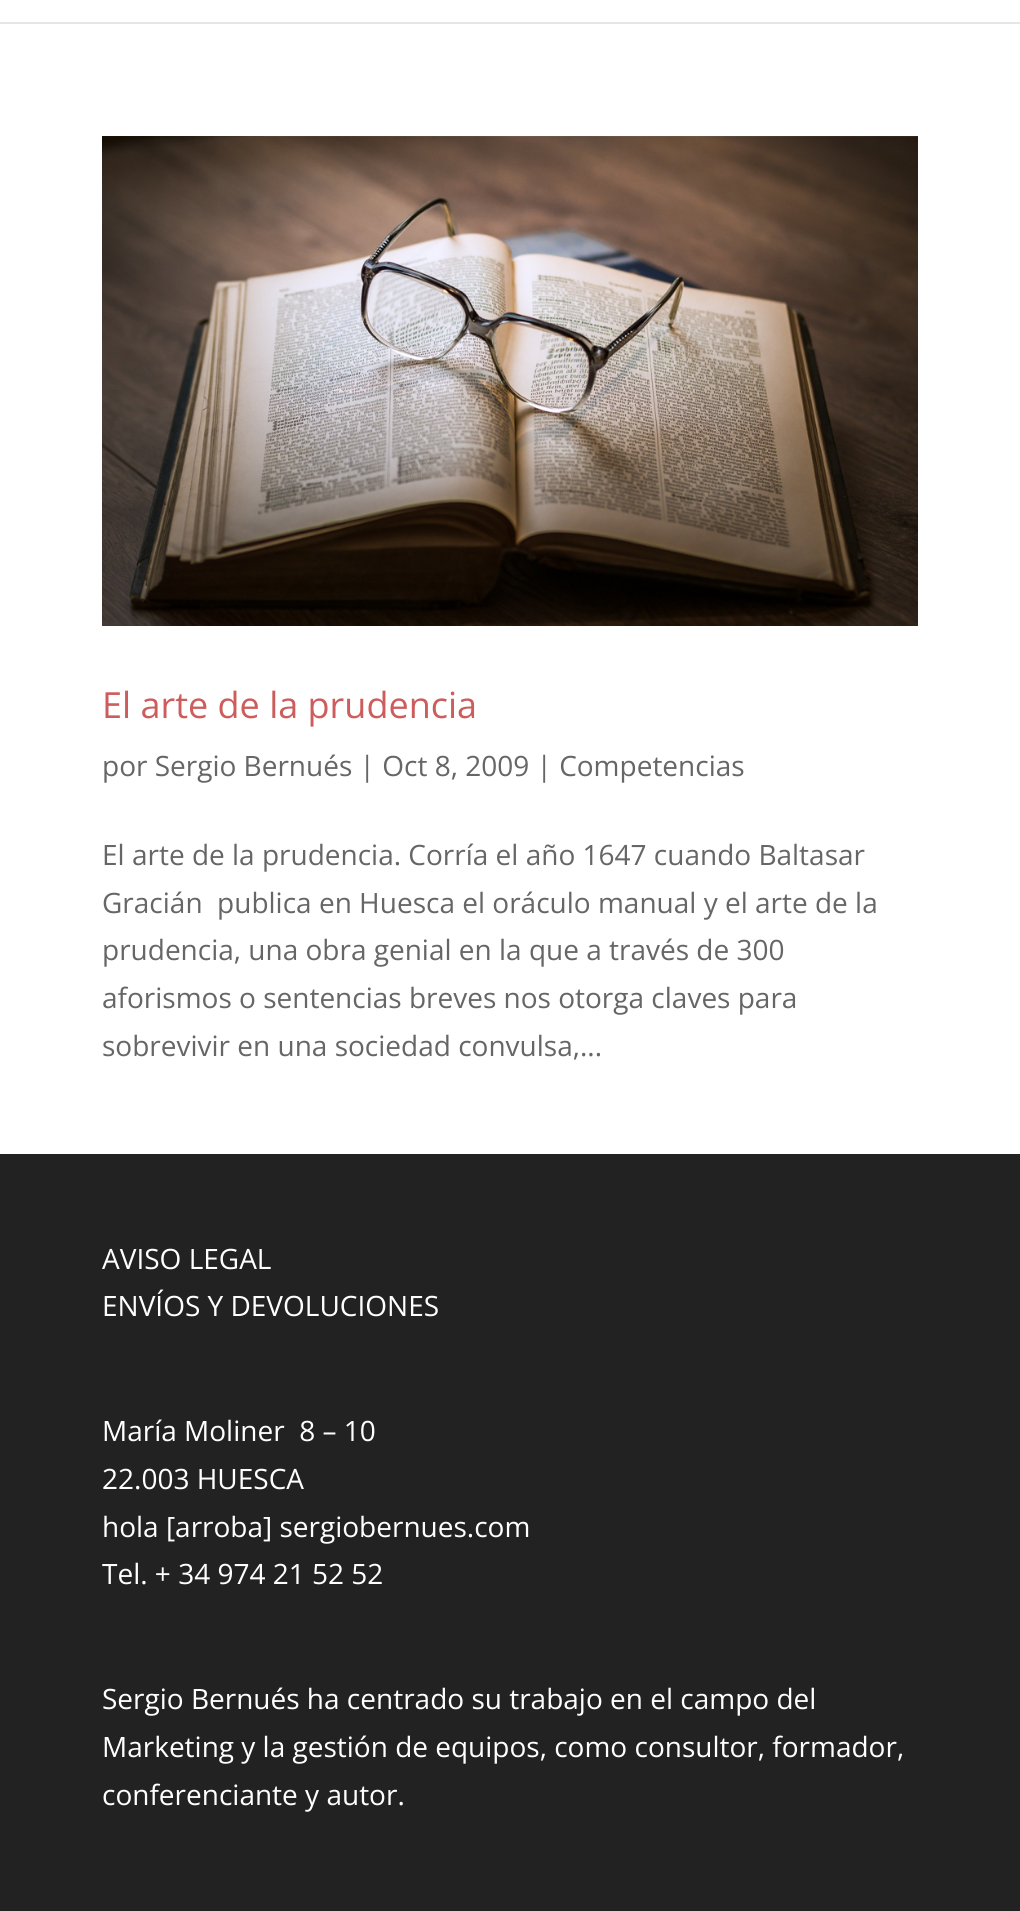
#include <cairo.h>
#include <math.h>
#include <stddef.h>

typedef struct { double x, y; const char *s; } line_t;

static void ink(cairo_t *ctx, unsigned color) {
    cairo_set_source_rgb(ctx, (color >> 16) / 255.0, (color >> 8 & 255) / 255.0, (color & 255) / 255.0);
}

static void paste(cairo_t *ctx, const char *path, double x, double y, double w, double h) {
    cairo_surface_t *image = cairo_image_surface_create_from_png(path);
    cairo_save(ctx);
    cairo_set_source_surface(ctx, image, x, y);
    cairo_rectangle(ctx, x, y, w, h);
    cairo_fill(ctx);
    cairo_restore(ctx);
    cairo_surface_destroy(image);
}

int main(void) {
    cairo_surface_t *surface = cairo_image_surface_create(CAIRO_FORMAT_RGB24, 1020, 1911);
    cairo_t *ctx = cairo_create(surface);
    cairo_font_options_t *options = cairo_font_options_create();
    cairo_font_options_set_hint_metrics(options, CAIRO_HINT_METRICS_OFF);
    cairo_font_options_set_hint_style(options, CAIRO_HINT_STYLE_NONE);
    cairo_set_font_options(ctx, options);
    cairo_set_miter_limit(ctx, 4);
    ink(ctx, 0xFFFFFF);
    cairo_paint(ctx);
    ink(ctx, 0xE6E6E6);
    cairo_rectangle(ctx, 0, 22, 1020, 2);
    cairo_fill(ctx);
    paste(ctx, "media/1.png", 102, 136, 816, 490);
    cairo_select_font_face(ctx, "Open Sans", CAIRO_FONT_SLANT_NORMAL, CAIRO_FONT_WEIGHT_NORMAL);
    cairo_set_font_size(ctx, 36);
    ink(ctx, 0xCD5C5C);
    cairo_move_to(ctx, 102, 718);
    cairo_show_text(ctx, "El arte de la prudencia");
    cairo_set_font_size(ctx, 28);
    ink(ctx, 0x666666);
    {
        static const line_t items[] = {
            {102, 776, "por Sergio Bernués | Oct 8, 2009 | Competencias"},
            {102, 865, "El arte de la prudencia. Corría el año 1647 cuando Baltasar"},
            {102, 913, "Gracián  publica en Huesca el oráculo manual y el arte de la"},
            {102, 960, "prudencia, una obra genial en la que a través de 300"},
            {102, 1008, "aforismos o sentencias breves nos otorga claves para"},
            {102, 1056, "sobrevivir en una sociedad convulsa,..."},
        };
        for (size_t i = 0; i < sizeof items / sizeof *items; i++) {
            cairo_move_to(ctx, items[i].x, items[i].y);
            cairo_show_text(ctx, items[i].s);
        }
    }
    ink(ctx, 0x222222);
    cairo_rectangle(ctx, 0, 1154, 1020, 757);
    cairo_fill(ctx);
    ink(ctx, 0xFFFFFF);
    {
        static const line_t items[] = {
            {102, 1269, "AVISO LEGAL"},
            {102, 1316, "ENVÍOS Y DEVOLUCIONES"},
            {102, 1441, "María Moliner  8 – 10"},
            {102, 1489, "22.003 HUESCA"},
            {102, 1537, "hola [arroba] sergiobernues.com"},
            {102, 1584, "Tel. + 34 974 21 52 52"},
            {102, 1709, "Sergio Bernués ha centrado su trabajo en el campo del"},
            {102, 1757, "Marketing y la gestión de equipos, como consultor, formador,"},
            {102, 1805, "conferenciante y autor."},
        };
        for (size_t i = 0; i < sizeof items / sizeof *items; i++) {
            cairo_move_to(ctx, items[i].x, items[i].y);
            cairo_show_text(ctx, items[i].s);
        }
    }
    cairo_surface_write_to_png(surface, "image.png");
    cairo_font_options_destroy(options);
    cairo_destroy(ctx);
    cairo_surface_destroy(surface);
    return 0;
}
